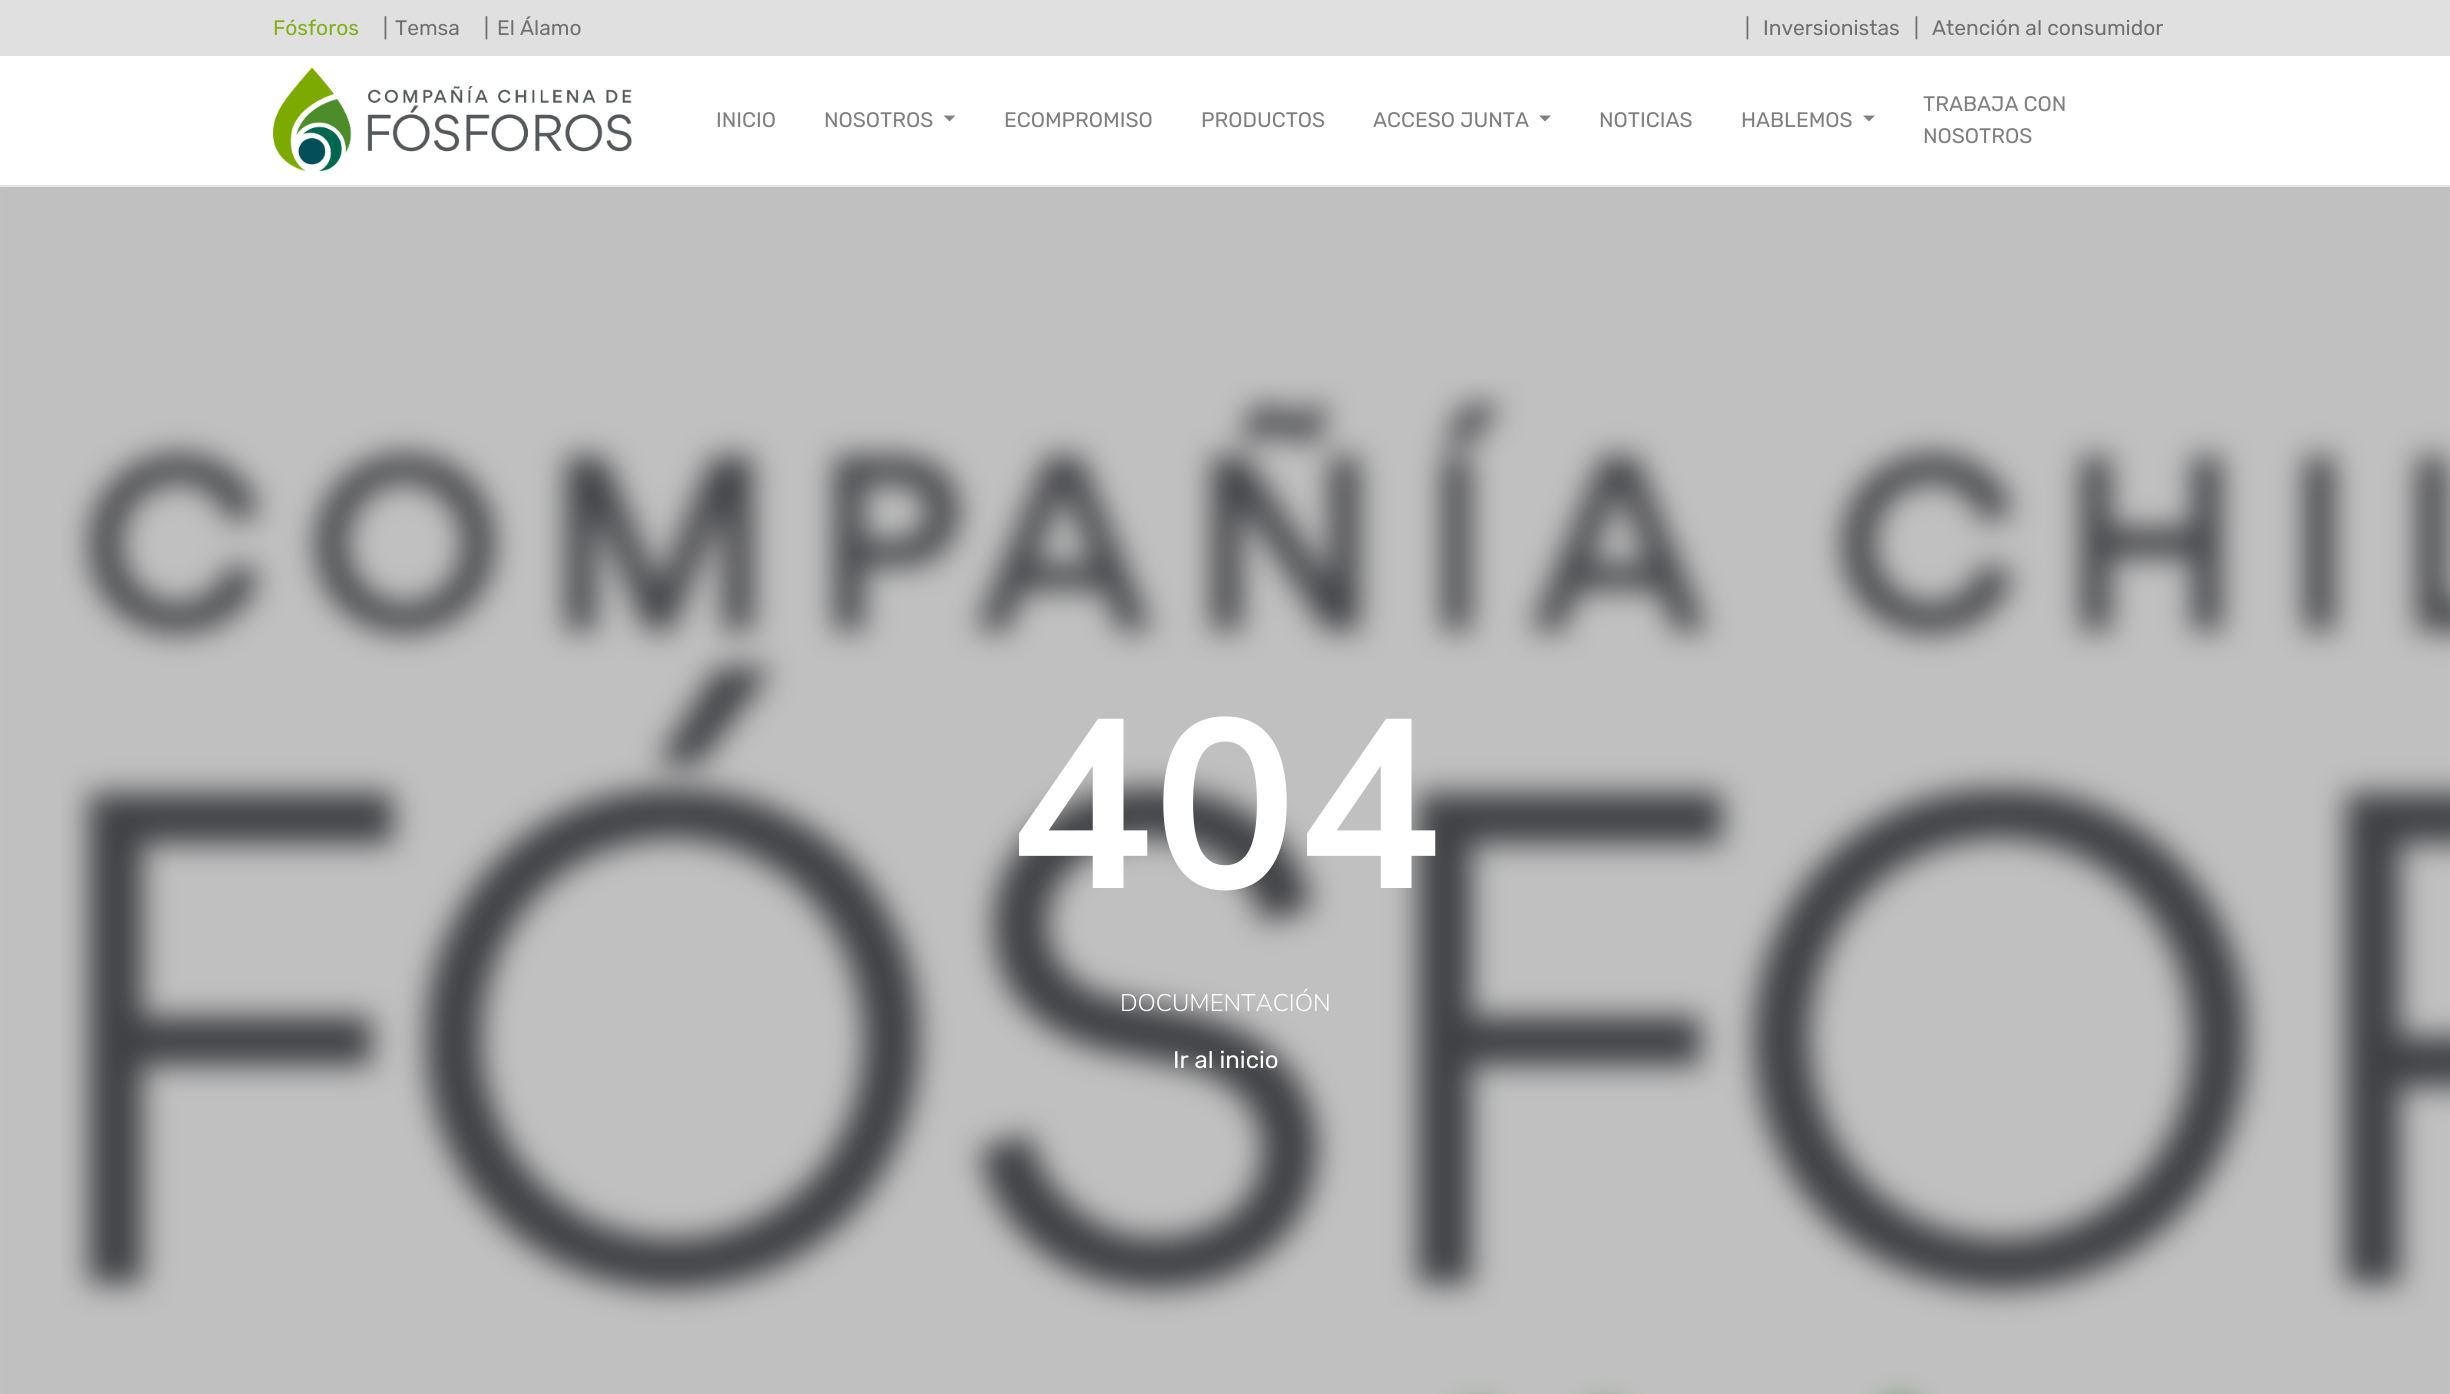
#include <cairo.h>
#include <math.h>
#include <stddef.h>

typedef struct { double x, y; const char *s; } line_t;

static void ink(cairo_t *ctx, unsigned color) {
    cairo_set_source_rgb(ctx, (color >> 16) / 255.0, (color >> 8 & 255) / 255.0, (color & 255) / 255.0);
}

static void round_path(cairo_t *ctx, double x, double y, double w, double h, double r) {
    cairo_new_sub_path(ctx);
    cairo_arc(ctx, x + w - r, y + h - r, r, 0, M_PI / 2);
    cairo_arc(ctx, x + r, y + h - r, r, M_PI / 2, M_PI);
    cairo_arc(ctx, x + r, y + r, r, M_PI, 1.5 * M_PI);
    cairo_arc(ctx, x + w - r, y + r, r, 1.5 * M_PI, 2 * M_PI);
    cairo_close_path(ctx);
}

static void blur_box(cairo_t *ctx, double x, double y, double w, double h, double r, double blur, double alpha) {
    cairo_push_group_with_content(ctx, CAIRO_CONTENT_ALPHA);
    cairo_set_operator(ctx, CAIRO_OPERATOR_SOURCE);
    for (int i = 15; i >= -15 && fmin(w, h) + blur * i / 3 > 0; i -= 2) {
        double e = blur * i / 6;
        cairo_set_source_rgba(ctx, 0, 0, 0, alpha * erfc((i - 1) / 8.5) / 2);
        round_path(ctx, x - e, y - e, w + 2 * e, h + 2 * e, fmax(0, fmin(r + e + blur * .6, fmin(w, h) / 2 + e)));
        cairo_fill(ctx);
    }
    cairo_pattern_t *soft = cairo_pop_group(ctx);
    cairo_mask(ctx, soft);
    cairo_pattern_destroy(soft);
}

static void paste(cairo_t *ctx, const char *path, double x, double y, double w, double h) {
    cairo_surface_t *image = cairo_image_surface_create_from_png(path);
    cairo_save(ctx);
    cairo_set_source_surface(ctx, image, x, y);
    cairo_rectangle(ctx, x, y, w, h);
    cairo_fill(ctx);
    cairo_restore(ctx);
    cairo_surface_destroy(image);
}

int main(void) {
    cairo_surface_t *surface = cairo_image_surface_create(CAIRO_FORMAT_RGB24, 2450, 1394);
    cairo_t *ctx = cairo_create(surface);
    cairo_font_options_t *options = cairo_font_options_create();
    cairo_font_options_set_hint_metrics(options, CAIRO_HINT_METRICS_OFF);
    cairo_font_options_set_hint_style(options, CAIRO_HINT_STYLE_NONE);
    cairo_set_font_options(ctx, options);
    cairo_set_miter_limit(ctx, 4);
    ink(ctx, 0xFFFFFF);
    cairo_paint(ctx);
    ink(ctx, 0xE0E0E0);
    cairo_rectangle(ctx, 0, 0, 2450, 56);
    cairo_fill(ctx);
    cairo_select_font_face(ctx, "Rubik", CAIRO_FONT_SLANT_NORMAL, CAIRO_FONT_WEIGHT_NORMAL);
    cairo_set_font_size(ctx, 21);
    ink(ctx, 0x82AF16);
    cairo_move_to(ctx, 273, 35);
    cairo_show_text(ctx, "Fósforos");
    ink(ctx, 0x707070);
    {
        static const line_t items[] = {
            {383, 35, "|"},
            {395, 35, "Temsa"},
            {484, 35, "|"},
            {497, 35, "El Álamo"},
            {1745, 35, "|"},
            {1763, 35, "Inversionistas"},
            {1914, 35, "|"},
            {1932, 35, "Atención al consumidor"},
        };
        for (size_t i = 0; i < sizeof items / sizeof *items; i++) {
            cairo_move_to(ctx, items[i].x, items[i].y);
            cairo_show_text(ctx, items[i].s);
        }
    }
    paste(ctx, "media/2.png", 61, 379, 2389, 1015);
    cairo_save(ctx);
    cairo_rectangle(ctx, 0, 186, 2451, 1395);
    cairo_clip(ctx);
    ink(ctx, 0x000000);
    blur_box(ctx, -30, 156, 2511, 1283, 0, 15, 0.25);
    cairo_restore(ctx);
    ink(ctx, 0xE5E5E5);
    cairo_rectangle(ctx, 0, 185, 2450, 2);
    cairo_fill(ctx);
    paste(ctx, "media/1.png", 273, 67, 359, 104);
    ink(ctx, 0x808080);
    cairo_move_to(ctx, 716, 127);
    cairo_show_text(ctx, "INICIO");
    cairo_move_to(ctx, 824, 127);
    cairo_show_text(ctx, "NOSOTROS");
    cairo_new_path(ctx);
    cairo_move_to(ctx, 943.5, 115.5);
    cairo_line_to(ctx, 955.5, 115.5);
    cairo_line_to(ctx, 949.5, 121.5);
    cairo_close_path(ctx);
    cairo_fill(ctx);
    {
        static const line_t items[] = {
            {1004, 127, "ECOMPROMISO"},
            {1201, 127, "PRODUCTOS"},
            {1373, 127, "ACCESO JUNTA"},
        };
        for (size_t i = 0; i < sizeof items / sizeof *items; i++) {
            cairo_move_to(ctx, items[i].x, items[i].y);
            cairo_show_text(ctx, items[i].s);
        }
    }
    cairo_new_path(ctx);
    cairo_move_to(ctx, 1539, 115.5);
    cairo_line_to(ctx, 1551, 115.5);
    cairo_line_to(ctx, 1545, 121.5);
    cairo_close_path(ctx);
    cairo_fill(ctx);
    cairo_move_to(ctx, 1599, 127);
    cairo_show_text(ctx, "NOTICIAS");
    cairo_move_to(ctx, 1741, 127);
    cairo_show_text(ctx, "HABLEMOS");
    cairo_new_path(ctx);
    cairo_move_to(ctx, 1863, 115.5);
    cairo_line_to(ctx, 1875, 115.5);
    cairo_line_to(ctx, 1869, 121.5);
    cairo_close_path(ctx);
    cairo_fill(ctx);
    cairo_move_to(ctx, 1923, 111);
    cairo_show_text(ctx, "TRABAJA CON");
    cairo_move_to(ctx, 1923, 143);
    cairo_show_text(ctx, "NOSOTROS");
    cairo_select_font_face(ctx, "Nunito Sans", CAIRO_FONT_SLANT_NORMAL, CAIRO_FONT_WEIGHT_BOLD);
    cairo_set_font_size(ctx, 240);
    ink(ctx, 0xFFFFFF);
    cairo_move_to(ctx, 1009, 888);
    cairo_show_text(ctx, "404");
    cairo_select_font_face(ctx, "Nunito Sans Light", CAIRO_FONT_SLANT_NORMAL, CAIRO_FONT_WEIGHT_NORMAL);
    cairo_set_font_size(ctx, 24);
    cairo_move_to(ctx, 1120, 1011);
    cairo_show_text(ctx, "DOCUMENTACIÓN");
    cairo_select_font_face(ctx, "Rubik", CAIRO_FONT_SLANT_NORMAL, CAIRO_FONT_WEIGHT_NORMAL);
    cairo_move_to(ctx, 1173, 1068);
    cairo_show_text(ctx, "Ir al inicio");
    cairo_surface_write_to_png(surface, "image.png");
    cairo_font_options_destroy(options);
    cairo_destroy(ctx);
    cairo_surface_destroy(surface);
    return 0;
}
